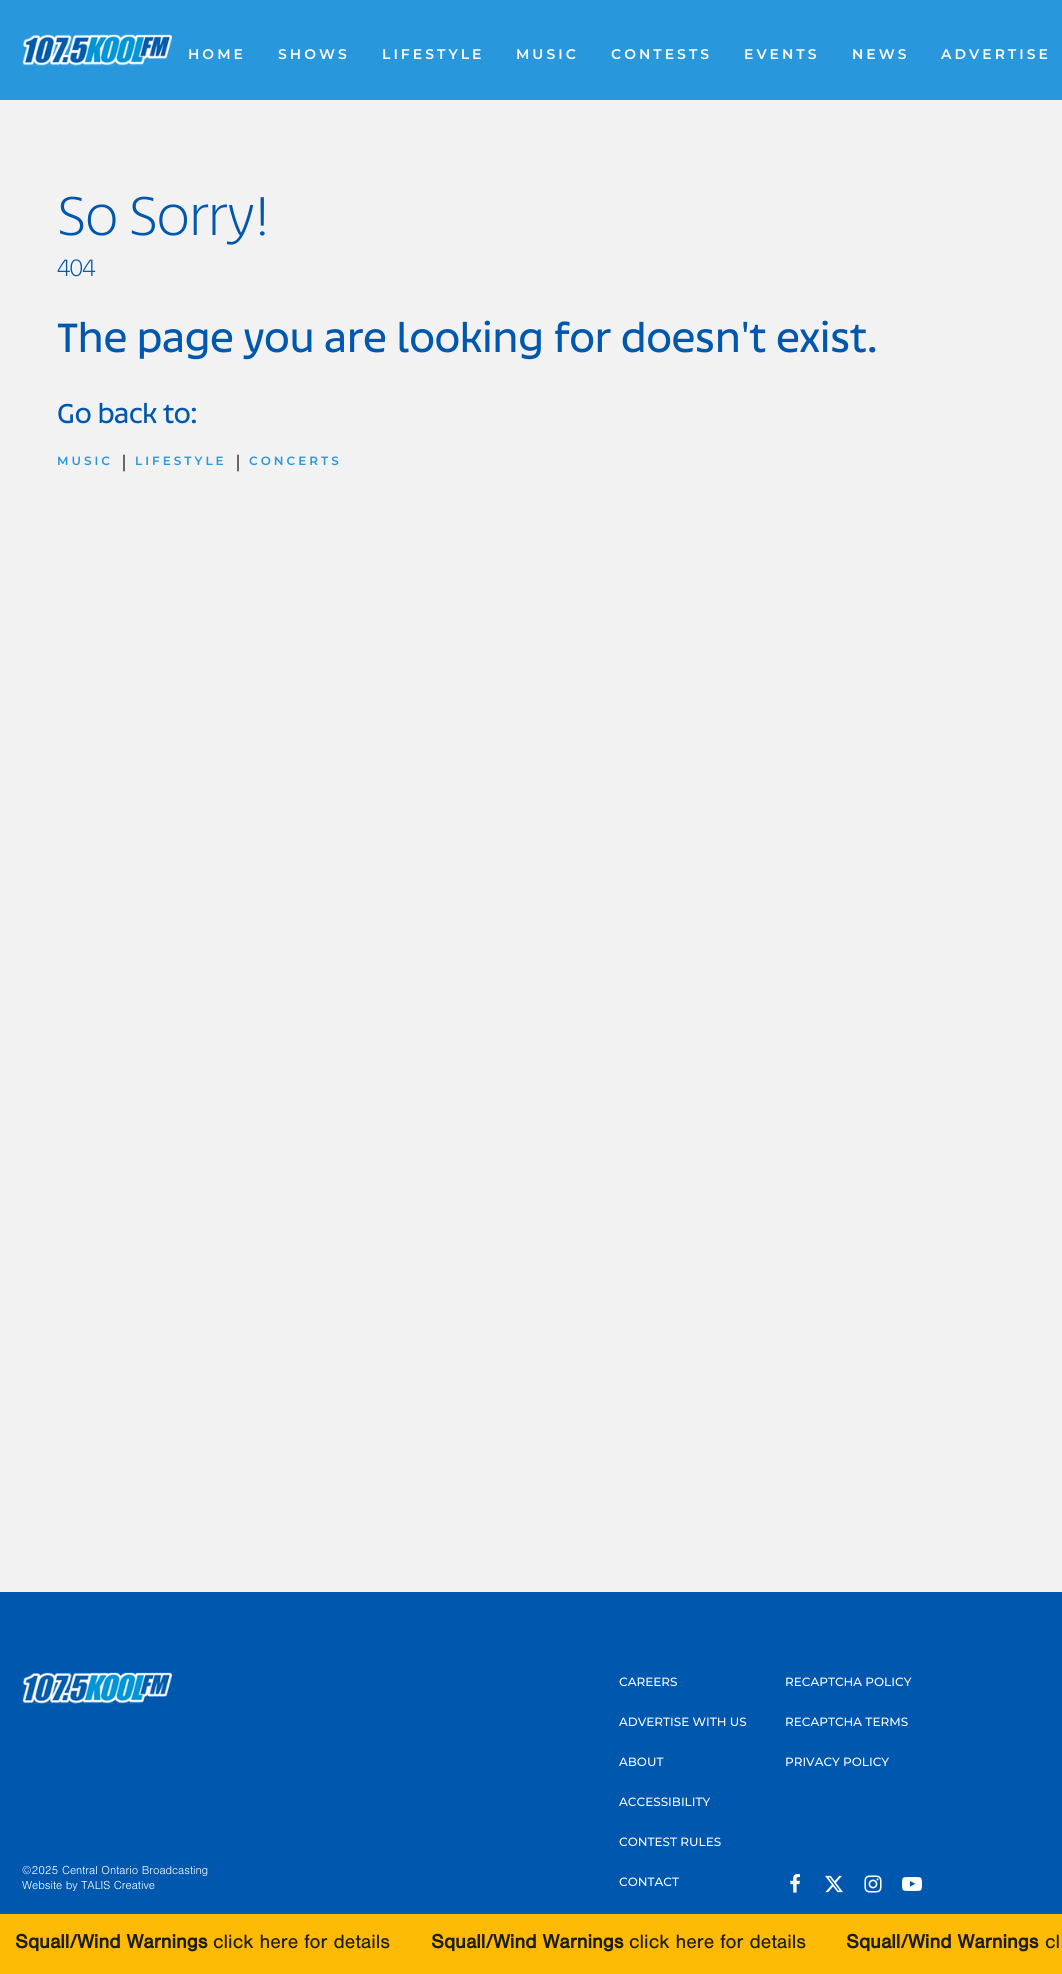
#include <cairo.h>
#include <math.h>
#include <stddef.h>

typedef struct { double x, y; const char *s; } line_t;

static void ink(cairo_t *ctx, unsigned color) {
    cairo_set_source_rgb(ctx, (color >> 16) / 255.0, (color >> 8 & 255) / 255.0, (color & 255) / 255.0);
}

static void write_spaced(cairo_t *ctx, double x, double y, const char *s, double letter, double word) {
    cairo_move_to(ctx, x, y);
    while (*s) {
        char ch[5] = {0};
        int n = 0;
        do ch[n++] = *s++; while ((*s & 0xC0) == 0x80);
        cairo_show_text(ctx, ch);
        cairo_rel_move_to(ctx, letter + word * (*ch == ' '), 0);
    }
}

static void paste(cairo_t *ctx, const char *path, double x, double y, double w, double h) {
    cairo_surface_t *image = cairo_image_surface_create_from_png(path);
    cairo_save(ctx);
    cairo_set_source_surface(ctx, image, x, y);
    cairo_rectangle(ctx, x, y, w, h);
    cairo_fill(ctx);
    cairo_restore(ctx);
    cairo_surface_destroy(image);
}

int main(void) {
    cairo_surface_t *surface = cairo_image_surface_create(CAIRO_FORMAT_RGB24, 1062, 1974);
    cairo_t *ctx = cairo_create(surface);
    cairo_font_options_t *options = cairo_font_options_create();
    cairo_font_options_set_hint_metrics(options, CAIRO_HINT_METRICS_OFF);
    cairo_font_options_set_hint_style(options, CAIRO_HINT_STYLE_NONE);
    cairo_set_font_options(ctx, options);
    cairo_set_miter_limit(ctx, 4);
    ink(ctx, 0xF2F2F2);
    cairo_paint(ctx);
    ink(ctx, 0x2897DC);
    cairo_rectangle(ctx, 0, 0, 1062, 100);
    cairo_fill(ctx);
    paste(ctx, "media/1.png", 22, 34, 150, 32);
    cairo_select_font_face(ctx, "Montserrat SemiBold", CAIRO_FONT_SLANT_NORMAL, CAIRO_FONT_WEIGHT_NORMAL);
    cairo_set_font_size(ctx, 14);
    ink(ctx, 0xFFFFFF);
    {
        static const line_t items[] = {
            {188, 59, "HOME"},
            {278, 59, "SHOWS"},
            {382, 59, "LIFESTYLE"},
            {516, 59, "MUSIC"},
            {611, 59, "CONTESTS"},
            {744, 59, "EVENTS"},
            {852, 59, "NEWS"},
            {941, 59, "ADVERTISE"},
        };
        for (size_t i = 0; i < sizeof items / sizeof *items; i++) {
            write_spaced(ctx, items[i].x, items[i].y, items[i].s, 3, 0);
        }
    }
    cairo_select_font_face(ctx, "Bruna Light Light", CAIRO_FONT_SLANT_NORMAL, CAIRO_FONT_WEIGHT_NORMAL);
    cairo_set_font_size(ctx, 60);
    ink(ctx, 0x0057AE);
    write_spaced(ctx, 57, 235, "So Sorry!", -2, 0);
    cairo_set_font_size(ctx, 26);
    write_spaced(ctx, 57, 276, "404", -1, 0);
    cairo_select_font_face(ctx, "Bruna", CAIRO_FONT_SLANT_NORMAL, CAIRO_FONT_WEIGHT_NORMAL);
    cairo_set_font_size(ctx, 45);
    write_spaced(ctx, 57, 352, "The page you are looking for doesn't exist.", -1, 0);
    cairo_set_font_size(ctx, 30);
    write_spaced(ctx, 57, 423, "Go back to:", -1, 0);
    cairo_select_font_face(ctx, "Montserrat SemiBold", CAIRO_FONT_SLANT_NORMAL, CAIRO_FONT_WEIGHT_NORMAL);
    cairo_set_font_size(ctx, 12);
    ink(ctx, 0x2897DC);
    write_spaced(ctx, 57, 465, "MUSIC", 3, 0);
    cairo_select_font_face(ctx, "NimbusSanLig", CAIRO_FONT_SLANT_NORMAL, CAIRO_FONT_WEIGHT_NORMAL);
    cairo_set_font_size(ctx, 20);
    ink(ctx, 0x1C1C1C);
    cairo_move_to(ctx, 119, 468);
    cairo_show_text(ctx, "|");
    cairo_select_font_face(ctx, "Montserrat SemiBold", CAIRO_FONT_SLANT_NORMAL, CAIRO_FONT_WEIGHT_NORMAL);
    cairo_set_font_size(ctx, 12);
    ink(ctx, 0x2897DC);
    write_spaced(ctx, 135, 465, "LIFESTYLE", 3, 0);
    cairo_select_font_face(ctx, "NimbusSanLig", CAIRO_FONT_SLANT_NORMAL, CAIRO_FONT_WEIGHT_NORMAL);
    cairo_set_font_size(ctx, 20);
    ink(ctx, 0x1C1C1C);
    cairo_move_to(ctx, 233, 468);
    cairo_show_text(ctx, "|");
    cairo_select_font_face(ctx, "Montserrat SemiBold", CAIRO_FONT_SLANT_NORMAL, CAIRO_FONT_WEIGHT_NORMAL);
    cairo_set_font_size(ctx, 12);
    ink(ctx, 0x2897DC);
    write_spaced(ctx, 249, 465, "CONCERTS", 3, 0);
    ink(ctx, 0x0057AE);
    cairo_rectangle(ctx, 0, 1592, 1062, 322);
    cairo_fill(ctx);
    cairo_select_font_face(ctx, "Montserrat Medium", CAIRO_FONT_SLANT_NORMAL, CAIRO_FONT_WEIGHT_NORMAL);
    ink(ctx, 0xFFFFFF);
    {
        static const line_t items[] = {
            {619, 1686, "CAREERS"},
            {619, 1726, "ADVERTISE WITH US"},
            {619, 1766, "ABOUT"},
            {619, 1806, "ACCESSIBILITY"},
            {619, 1846, "CONTEST RULES"},
            {619, 1886, "CONTACT"},
            {785, 1686, "RECAPTCHA POLICY"},
            {785, 1726, "RECAPTCHA TERMS"},
            {785, 1766, "PRIVACY POLICY"},
        };
        for (size_t i = 0; i < sizeof items / sizeof *items; i++) {
            cairo_move_to(ctx, items[i].x, items[i].y);
            cairo_show_text(ctx, items[i].s);
        }
    }
    paste(ctx, "media/2.png", 790, 1874, 10, 19);
    paste(ctx, "media/3.png", 825, 1875, 18, 18);
    paste(ctx, "media/4.png", 864, 1875, 18, 18);
    paste(ctx, "media/5.png", 902, 1877, 20, 14);
    paste(ctx, "media/6.png", 22, 1672, 150, 32);
    cairo_select_font_face(ctx, "NimbusSanLig", CAIRO_FONT_SLANT_NORMAL, CAIRO_FONT_WEIGHT_NORMAL);
    cairo_move_to(ctx, 22, 1874);
    cairo_show_text(ctx, "©2025 Central Ontario Broadcasting");
    cairo_move_to(ctx, 22, 1889);
    cairo_show_text(ctx, "Website by TALIS Creative");
    ink(ctx, 0xFCBA04);
    cairo_rectangle(ctx, 0, 1914, 1062, 60);
    cairo_fill(ctx);
    cairo_select_font_face(ctx, "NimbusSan", CAIRO_FONT_SLANT_NORMAL, CAIRO_FONT_WEIGHT_BOLD);
    cairo_set_font_size(ctx, 20);
    ink(ctx, 0x1C1C1C);
    cairo_move_to(ctx, 15, 1948);
    cairo_show_text(ctx, "Squall/Wind Warnings");
    cairo_select_font_face(ctx, "NimbusSan", CAIRO_FONT_SLANT_NORMAL, CAIRO_FONT_WEIGHT_NORMAL);
    cairo_move_to(ctx, 213, 1948);
    cairo_show_text(ctx, "click here for details");
    cairo_select_font_face(ctx, "NimbusSan", CAIRO_FONT_SLANT_NORMAL, CAIRO_FONT_WEIGHT_BOLD);
    cairo_move_to(ctx, 431, 1948);
    cairo_show_text(ctx, "Squall/Wind Warnings");
    cairo_select_font_face(ctx, "NimbusSan", CAIRO_FONT_SLANT_NORMAL, CAIRO_FONT_WEIGHT_NORMAL);
    cairo_move_to(ctx, 629, 1948);
    cairo_show_text(ctx, "click here for details");
    cairo_select_font_face(ctx, "NimbusSan", CAIRO_FONT_SLANT_NORMAL, CAIRO_FONT_WEIGHT_BOLD);
    cairo_move_to(ctx, 846, 1948);
    cairo_show_text(ctx, "Squall/Wind Warnings");
    cairo_select_font_face(ctx, "NimbusSan", CAIRO_FONT_SLANT_NORMAL, CAIRO_FONT_WEIGHT_NORMAL);
    cairo_move_to(ctx, 1045, 1948);
    cairo_show_text(ctx, "cl");
    cairo_surface_write_to_png(surface, "image.png");
    cairo_font_options_destroy(options);
    cairo_destroy(ctx);
    cairo_surface_destroy(surface);
    return 0;
}
